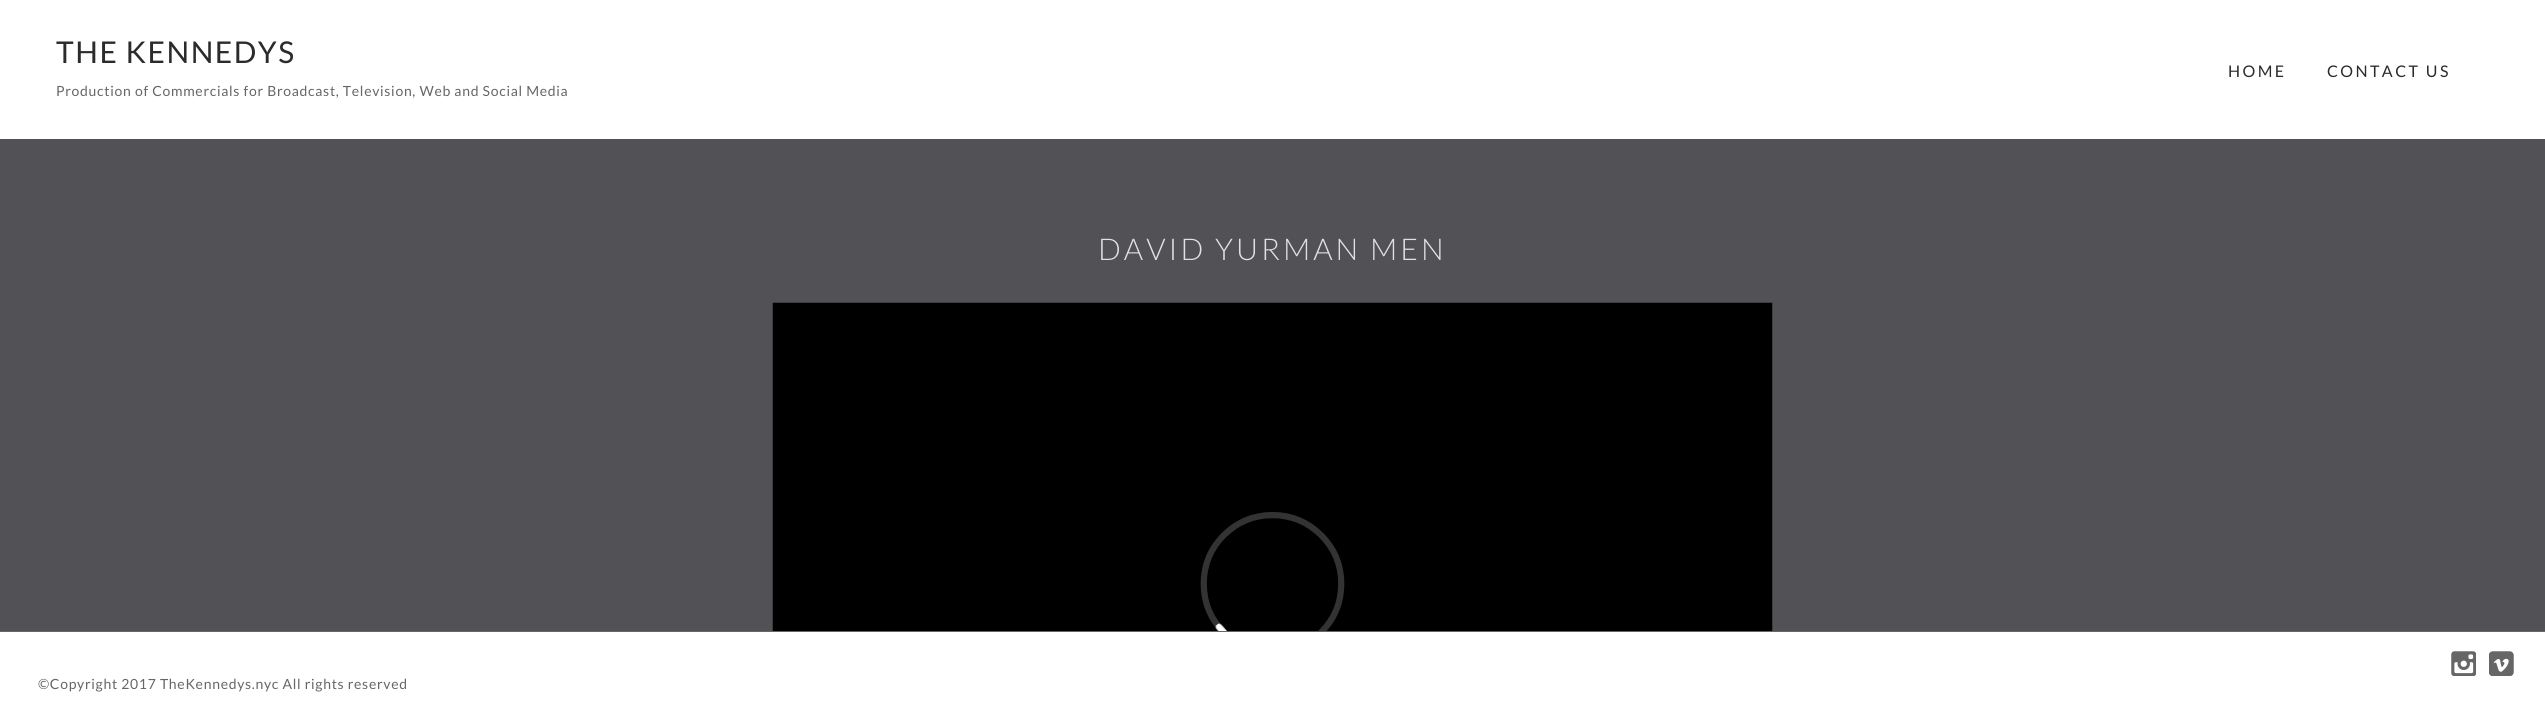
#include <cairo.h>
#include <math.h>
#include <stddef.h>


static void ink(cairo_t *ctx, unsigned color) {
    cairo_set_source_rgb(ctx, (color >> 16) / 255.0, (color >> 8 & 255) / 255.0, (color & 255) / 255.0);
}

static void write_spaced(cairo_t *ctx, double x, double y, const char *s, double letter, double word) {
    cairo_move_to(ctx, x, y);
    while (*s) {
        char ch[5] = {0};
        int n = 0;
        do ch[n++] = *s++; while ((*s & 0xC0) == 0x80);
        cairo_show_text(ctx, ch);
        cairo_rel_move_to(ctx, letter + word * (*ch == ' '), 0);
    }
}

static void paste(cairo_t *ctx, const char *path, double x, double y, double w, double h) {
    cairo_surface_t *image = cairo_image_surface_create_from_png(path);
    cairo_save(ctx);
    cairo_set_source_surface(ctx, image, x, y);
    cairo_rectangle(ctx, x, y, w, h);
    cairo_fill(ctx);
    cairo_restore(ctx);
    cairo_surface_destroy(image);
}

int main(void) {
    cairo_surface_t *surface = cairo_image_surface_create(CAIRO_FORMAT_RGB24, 2545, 712);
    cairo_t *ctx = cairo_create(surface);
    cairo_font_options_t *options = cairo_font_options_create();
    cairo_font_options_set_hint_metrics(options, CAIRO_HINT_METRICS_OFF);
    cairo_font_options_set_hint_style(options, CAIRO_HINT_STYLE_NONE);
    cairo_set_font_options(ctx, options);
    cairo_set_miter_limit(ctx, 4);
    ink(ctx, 0xFFFFFF);
    cairo_paint(ctx);
    cairo_select_font_face(ctx, "Lato", CAIRO_FONT_SLANT_NORMAL, CAIRO_FONT_WEIGHT_NORMAL);
    cairo_set_font_size(ctx, 30);
    ink(ctx, 0x2B2B2B);
    write_spaced(ctx, 56, 63, "THE KENNEDYS", 1.5, 0);
    cairo_set_font_size(ctx, 14);
    ink(ctx, 0x666667);
    write_spaced(ctx, 56, 96, "Production of Commercials for Broadcast, Television, Web and Social Media", 0.7, 0);
    cairo_set_font_size(ctx, 16);
    ink(ctx, 0x2B2B2B);
    write_spaced(ctx, 2228, 77, "HOME", 2.4, 0);
    write_spaced(ctx, 2327, 77, "CONTACT US", 2.4, 0);
    ink(ctx, 0x525256);
    cairo_rectangle(ctx, 0, 139, 2545, 492);
    cairo_fill(ctx);
    cairo_select_font_face(ctx, "Lato Light", CAIRO_FONT_SLANT_NORMAL, CAIRO_FONT_WEIGHT_NORMAL);
    cairo_set_font_size(ctx, 30);
    ink(ctx, 0xE1E1E1);
    write_spaced(ctx, 1098, 260, "DAVID YURMAN MEN", 3, 0);
    paste(ctx, "media/1.png", 772, 302, 1001, 329);
    ink(ctx, 0x666667);
    cairo_rectangle(ctx, 0, 631, 2545, 1);
    cairo_fill(ctx);
    paste(ctx, "media/2.png", 2451, 651, 25, 25);
    paste(ctx, "media/3.png", 2489, 651, 25, 25);
    cairo_select_font_face(ctx, "Lato", CAIRO_FONT_SLANT_NORMAL, CAIRO_FONT_WEIGHT_NORMAL);
    cairo_set_font_size(ctx, 14);
    write_spaced(ctx, 38, 689, "©Copyright 2017 TheKennedys.nyc All rights reserved", 0.7, 0);
    cairo_surface_write_to_png(surface, "image.png");
    cairo_font_options_destroy(options);
    cairo_destroy(ctx);
    cairo_surface_destroy(surface);
    return 0;
}
